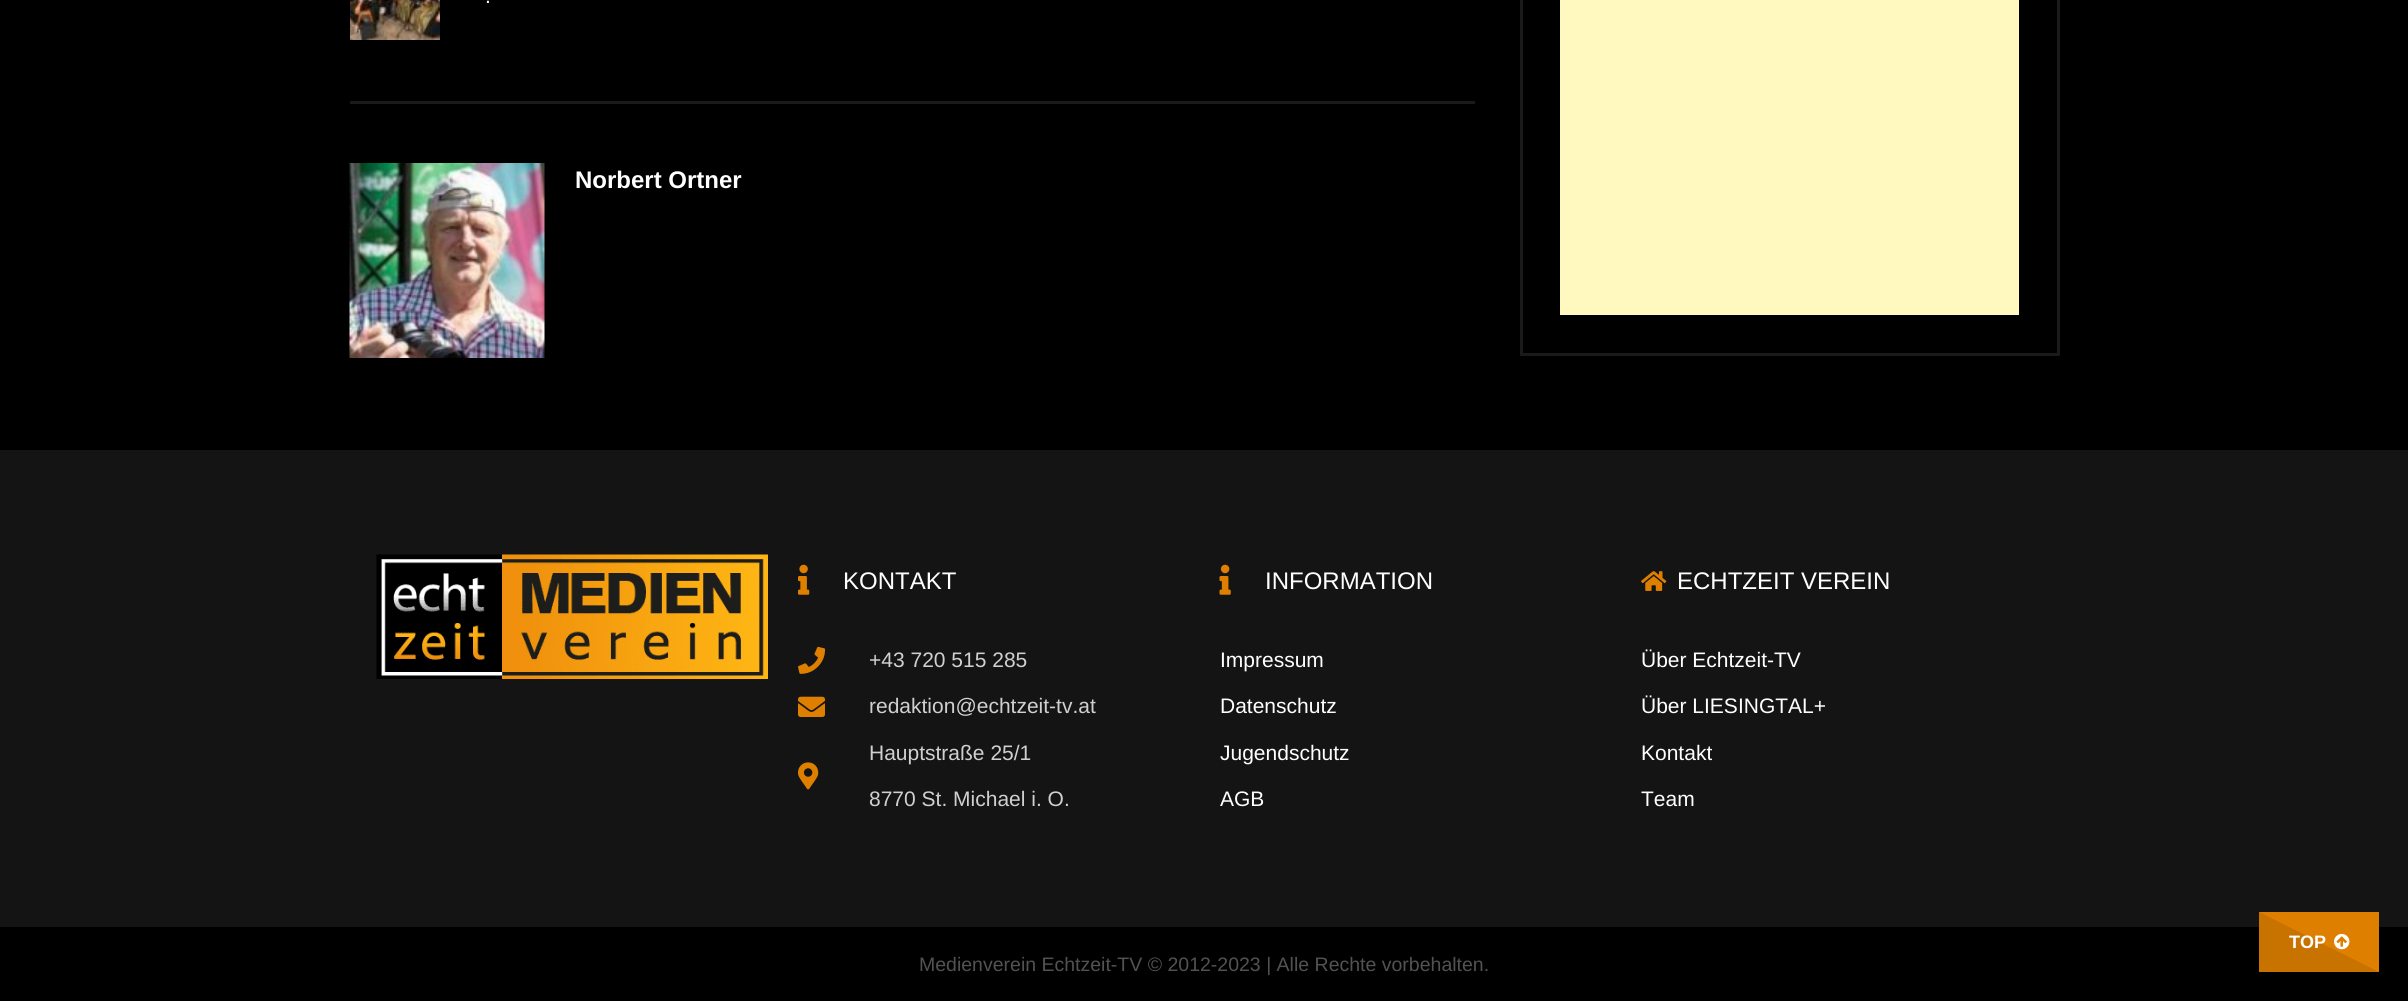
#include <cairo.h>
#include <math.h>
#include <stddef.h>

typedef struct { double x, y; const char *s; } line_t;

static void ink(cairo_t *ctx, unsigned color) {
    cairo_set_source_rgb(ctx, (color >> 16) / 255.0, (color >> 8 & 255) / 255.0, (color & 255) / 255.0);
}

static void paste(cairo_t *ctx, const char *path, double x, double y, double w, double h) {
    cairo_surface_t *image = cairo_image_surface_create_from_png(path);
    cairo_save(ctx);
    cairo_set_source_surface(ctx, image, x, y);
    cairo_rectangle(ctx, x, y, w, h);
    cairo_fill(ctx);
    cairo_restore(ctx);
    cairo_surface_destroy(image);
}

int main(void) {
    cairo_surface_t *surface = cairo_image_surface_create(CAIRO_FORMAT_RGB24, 2408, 1001);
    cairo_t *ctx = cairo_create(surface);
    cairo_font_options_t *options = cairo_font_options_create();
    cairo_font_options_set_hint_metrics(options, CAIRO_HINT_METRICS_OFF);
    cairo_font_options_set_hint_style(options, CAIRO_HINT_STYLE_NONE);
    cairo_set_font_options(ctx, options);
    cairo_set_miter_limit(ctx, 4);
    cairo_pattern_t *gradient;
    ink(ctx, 0x000000);
    cairo_paint(ctx);
    ink(ctx, 0x1A1A1A);
    cairo_rectangle(ctx, 350, 101, 1125, 3);
    cairo_fill(ctx);
    paste(ctx, "media/1.png", 350, 0, 90, 40);
    cairo_select_font_face(ctx, "Liberation Sans", CAIRO_FONT_SLANT_NORMAL, CAIRO_FONT_WEIGHT_NORMAL);
    cairo_set_font_size(ctx, 21);
    ink(ctx, 0xFFFFFF);
    cairo_move_to(ctx, 485, 3);
    cairo_show_text(ctx, ".");
    paste(ctx, "media/2.png", 349, 163, 196, 195);
    cairo_select_font_face(ctx, "Liberation Sans", CAIRO_FONT_SLANT_NORMAL, CAIRO_FONT_WEIGHT_BOLD);
    cairo_set_font_size(ctx, 24);
    cairo_move_to(ctx, 575, 188);
    cairo_show_text(ctx, "Norbert Ortner");
    cairo_rectangle(ctx, 1521.5, -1.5, 537, 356);
    ink(ctx, 0x1A1A1A);
    cairo_set_line_width(ctx, 3);
    cairo_stroke(ctx);
    ink(ctx, 0xFFF9C0);
    cairo_rectangle(ctx, 1560, 0, 459, 315);
    cairo_fill(ctx);
    ink(ctx, 0x141414);
    cairo_rectangle(ctx, 0, 450, 2408, 477);
    cairo_fill(ctx);
    paste(ctx, "media/3.png", 376, 554, 392, 125);
    paste(ctx, "media/4.png", 798, 564, 12, 31);
    cairo_select_font_face(ctx, "Liberation Sans", CAIRO_FONT_SLANT_NORMAL, CAIRO_FONT_WEIGHT_NORMAL);
    ink(ctx, 0xFFFFFF);
    cairo_move_to(ctx, 843, 589);
    cairo_show_text(ctx, "KONTAKT");
    paste(ctx, "media/5.png", 798, 646, 28, 28);
    cairo_set_font_size(ctx, 21);
    ink(ctx, 0xD0D0D0);
    cairo_move_to(ctx, 869, 667);
    cairo_show_text(ctx, "+43 720 515 285");
    paste(ctx, "media/6.png", 798, 696, 27, 21);
    cairo_move_to(ctx, 869, 713);
    cairo_show_text(ctx, "redaktion@echtzeit-tv.at");
    paste(ctx, "media/7.png", 798, 762, 21, 28);
    cairo_move_to(ctx, 869, 760);
    cairo_show_text(ctx, "Hauptstraße 25/1");
    cairo_move_to(ctx, 869, 806);
    cairo_show_text(ctx, "8770 St. Michael i. O.");
    paste(ctx, "media/8.png", 1219, 564, 12, 31);
    cairo_set_font_size(ctx, 24);
    ink(ctx, 0xFFFFFF);
    cairo_move_to(ctx, 1265, 589);
    cairo_show_text(ctx, "INFORMATION");
    cairo_set_font_size(ctx, 21);
    {
        static const line_t items[] = {
            {1220, 667, "Impressum"},
            {1220, 713, "Datenschutz"},
            {1220, 760, "Jugendschutz"},
            {1220, 806, "AGB"},
        };
        for (size_t i = 0; i < sizeof items / sizeof *items; i++) {
            cairo_move_to(ctx, items[i].x, items[i].y);
            cairo_show_text(ctx, items[i].s);
        }
    }
    paste(ctx, "media/9.png", 1641, 571, 26, 20);
    cairo_set_font_size(ctx, 24);
    cairo_move_to(ctx, 1677, 589);
    cairo_show_text(ctx, "ECHTZEIT VEREIN");
    cairo_set_font_size(ctx, 21);
    {
        static const line_t items[] = {
            {1641, 667, "Über Echtzeit-TV"},
            {1641, 713, "Über LIESINGTAL+"},
            {1641, 760, "Kontakt"},
            {1641, 806, "Team"},
        };
        for (size_t i = 0; i < sizeof items / sizeof *items; i++) {
            cairo_move_to(ctx, items[i].x, items[i].y);
            cairo_show_text(ctx, items[i].s);
        }
    }
    cairo_set_font_size(ctx, 19.5);
    ink(ctx, 0x525252);
    cairo_move_to(ctx, 919, 971);
    cairo_show_text(ctx, "Medienverein Echtzeit-TV © 2012-2023 | Alle Rechte vorbehalten.");
    gradient = cairo_pattern_create_linear(2343, 894, 2295, 990);
    cairo_pattern_add_color_stop_rgba(gradient, 0.5, 0.871, 0.498, 0, 1);
    cairo_pattern_add_color_stop_rgba(gradient, 0.5, 0.784, 0.447, 0, 1);
    cairo_set_source(ctx, gradient);
    cairo_pattern_destroy(gradient);
    cairo_rectangle(ctx, 2259, 912, 120, 60);
    cairo_fill(ctx);
    cairo_select_font_face(ctx, "Liberation Sans", CAIRO_FONT_SLANT_NORMAL, CAIRO_FONT_WEIGHT_BOLD);
    cairo_set_font_size(ctx, 18);
    ink(ctx, 0xFFFFFF);
    cairo_move_to(ctx, 2289, 948);
    cairo_show_text(ctx, "TOP");
    paste(ctx, "media/10.png", 2334, 933, 16, 17);
    cairo_surface_write_to_png(surface, "image.png");
    cairo_font_options_destroy(options);
    cairo_destroy(ctx);
    cairo_surface_destroy(surface);
    return 0;
}
